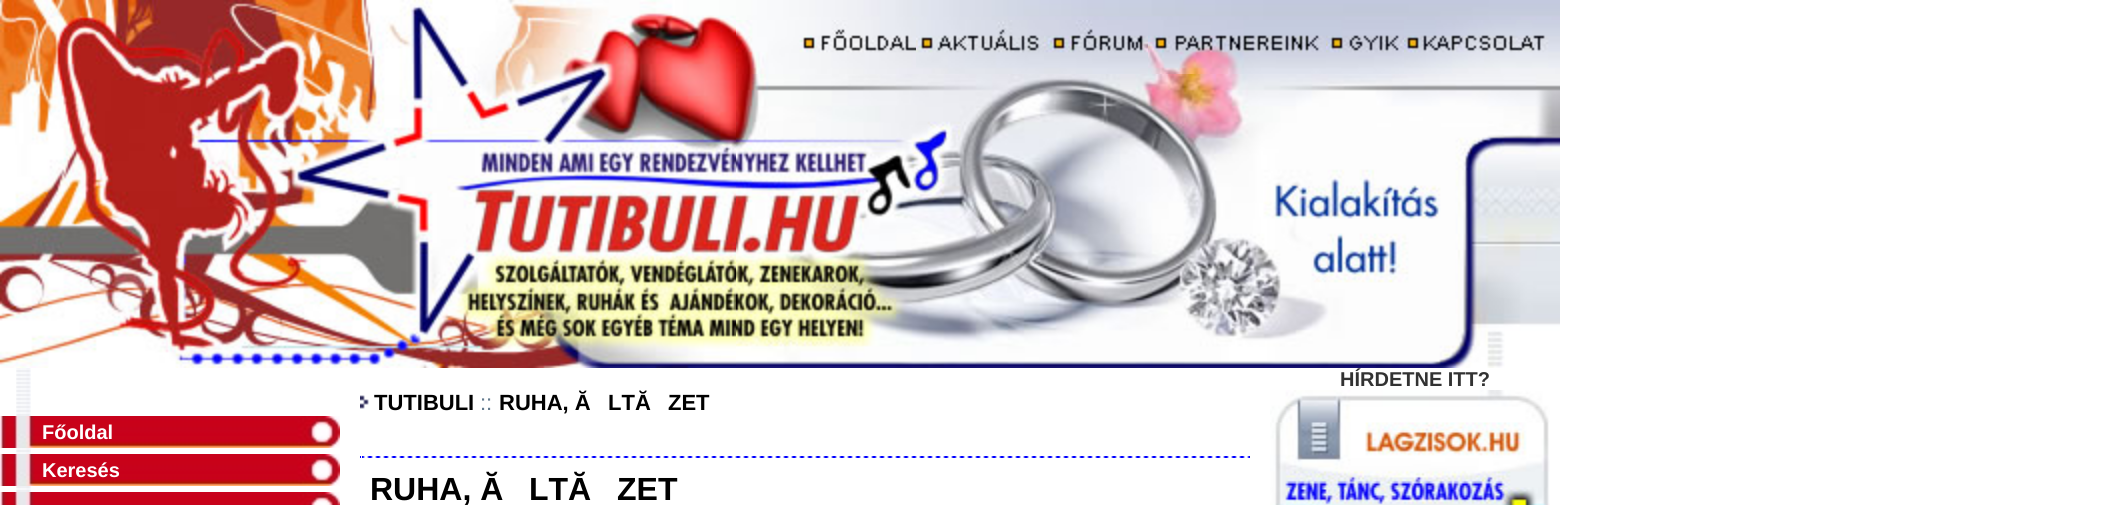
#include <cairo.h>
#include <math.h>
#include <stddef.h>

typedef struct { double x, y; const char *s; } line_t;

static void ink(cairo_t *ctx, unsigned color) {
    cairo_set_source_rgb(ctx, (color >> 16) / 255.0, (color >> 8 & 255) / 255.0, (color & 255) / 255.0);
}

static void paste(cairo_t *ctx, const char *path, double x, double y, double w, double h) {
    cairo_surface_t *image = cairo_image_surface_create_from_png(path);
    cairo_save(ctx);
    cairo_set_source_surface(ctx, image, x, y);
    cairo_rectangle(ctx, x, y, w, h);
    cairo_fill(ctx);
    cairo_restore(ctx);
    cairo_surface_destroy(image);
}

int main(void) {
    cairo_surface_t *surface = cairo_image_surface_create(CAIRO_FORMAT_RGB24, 2122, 505);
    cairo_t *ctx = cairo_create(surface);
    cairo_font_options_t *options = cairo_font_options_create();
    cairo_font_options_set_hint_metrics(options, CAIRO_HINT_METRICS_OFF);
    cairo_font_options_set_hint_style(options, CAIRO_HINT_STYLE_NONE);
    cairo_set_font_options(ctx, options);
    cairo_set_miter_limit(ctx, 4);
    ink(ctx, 0xFFFFFF);
    cairo_paint(ctx);
    paste(ctx, "media/1.png", 0, 0, 736, 368);
    paste(ctx, "media/2.png", 736, 0, 824, 20);
    paste(ctx, "media/3.png", 736, 20, 180, 54);
    paste(ctx, "media/4.png", 916, 20, 128, 54);
    paste(ctx, "media/5.png", 1044, 20, 104, 54);
    paste(ctx, "media/6.png", 1148, 20, 178, 54);
    paste(ctx, "media/7.png", 1326, 20, 78, 54);
    paste(ctx, "media/8.png", 1404, 20, 156, 54);
    paste(ctx, "media/9.png", 736, 74, 824, 294);
    cairo_select_font_face(ctx, "Liberation Sans", CAIRO_FONT_SLANT_NORMAL, CAIRO_FONT_WEIGHT_BOLD);
    cairo_set_font_size(ctx, 20);
    ink(ctx, 0x323232);
    cairo_move_to(ctx, 1340, 386);
    cairo_show_text(ctx, "HÍRDETNE ITT?");
    paste(ctx, "media/10.png", 1270, 390, 280, 115);
    paste(ctx, "media/11.png", 16, 368, 15, 124);
    paste(ctx, "media/12.png", 0, 416, 42, 32);
    paste(ctx, "media/13.png", 42, 416, 298, 32);
    ink(ctx, 0xFFFFFF);
    cairo_move_to(ctx, 42, 439);
    cairo_show_text(ctx, "Főoldal");
    paste(ctx, "media/12.png", 0, 454, 42, 32);
    paste(ctx, "media/13.png", 42, 454, 298, 32);
    cairo_move_to(ctx, 42, 477);
    cairo_show_text(ctx, "Keresés");
    paste(ctx, "media/14.png", 0, 492, 42, 13);
    paste(ctx, "media/15.png", 42, 492, 298, 13);
    paste(ctx, "media/16.png", 360, 395, 9, 14);
    cairo_set_font_size(ctx, 22);
    ink(ctx, 0x000000);
    cairo_move_to(ctx, 374, 410);
    cairo_show_text(ctx, "TUTIBULI");
    cairo_select_font_face(ctx, "Liberation Sans", CAIRO_FONT_SLANT_NORMAL, CAIRO_FONT_WEIGHT_NORMAL);
    ink(ctx, 0x637A8E);
    cairo_move_to(ctx, 480, 410);
    cairo_show_text(ctx, "::");
    cairo_select_font_face(ctx, "Liberation Sans", CAIRO_FONT_SLANT_NORMAL, CAIRO_FONT_WEIGHT_BOLD);
    ink(ctx, 0x000000);
    {
        static const line_t items[] = {
            {499, 410, "RUHA, Ă"},
            {608, 410, "LTĂ"},
            {668, 410, "ZET"},
        };
        for (size_t i = 0; i < sizeof items / sizeof *items; i++) {
            cairo_move_to(ctx, items[i].x, items[i].y);
            cairo_show_text(ctx, items[i].s);
        }
    }
    paste(ctx, "media/17.png", 362, 456, 888, 2);
    paste(ctx, "media/18.png", 360, 456, 2, 2);
    cairo_set_font_size(ctx, 32);
    {
        static const line_t items[] = {
            {370, 500, "RUHA, Ă"},
            {529, 500, "LTĂ"},
            {617, 500, "ZET"},
        };
        for (size_t i = 0; i < sizeof items / sizeof *items; i++) {
            cairo_move_to(ctx, items[i].x, items[i].y);
            cairo_show_text(ctx, items[i].s);
        }
    }
    cairo_surface_write_to_png(surface, "image.png");
    cairo_font_options_destroy(options);
    cairo_destroy(ctx);
    cairo_surface_destroy(surface);
    return 0;
}
